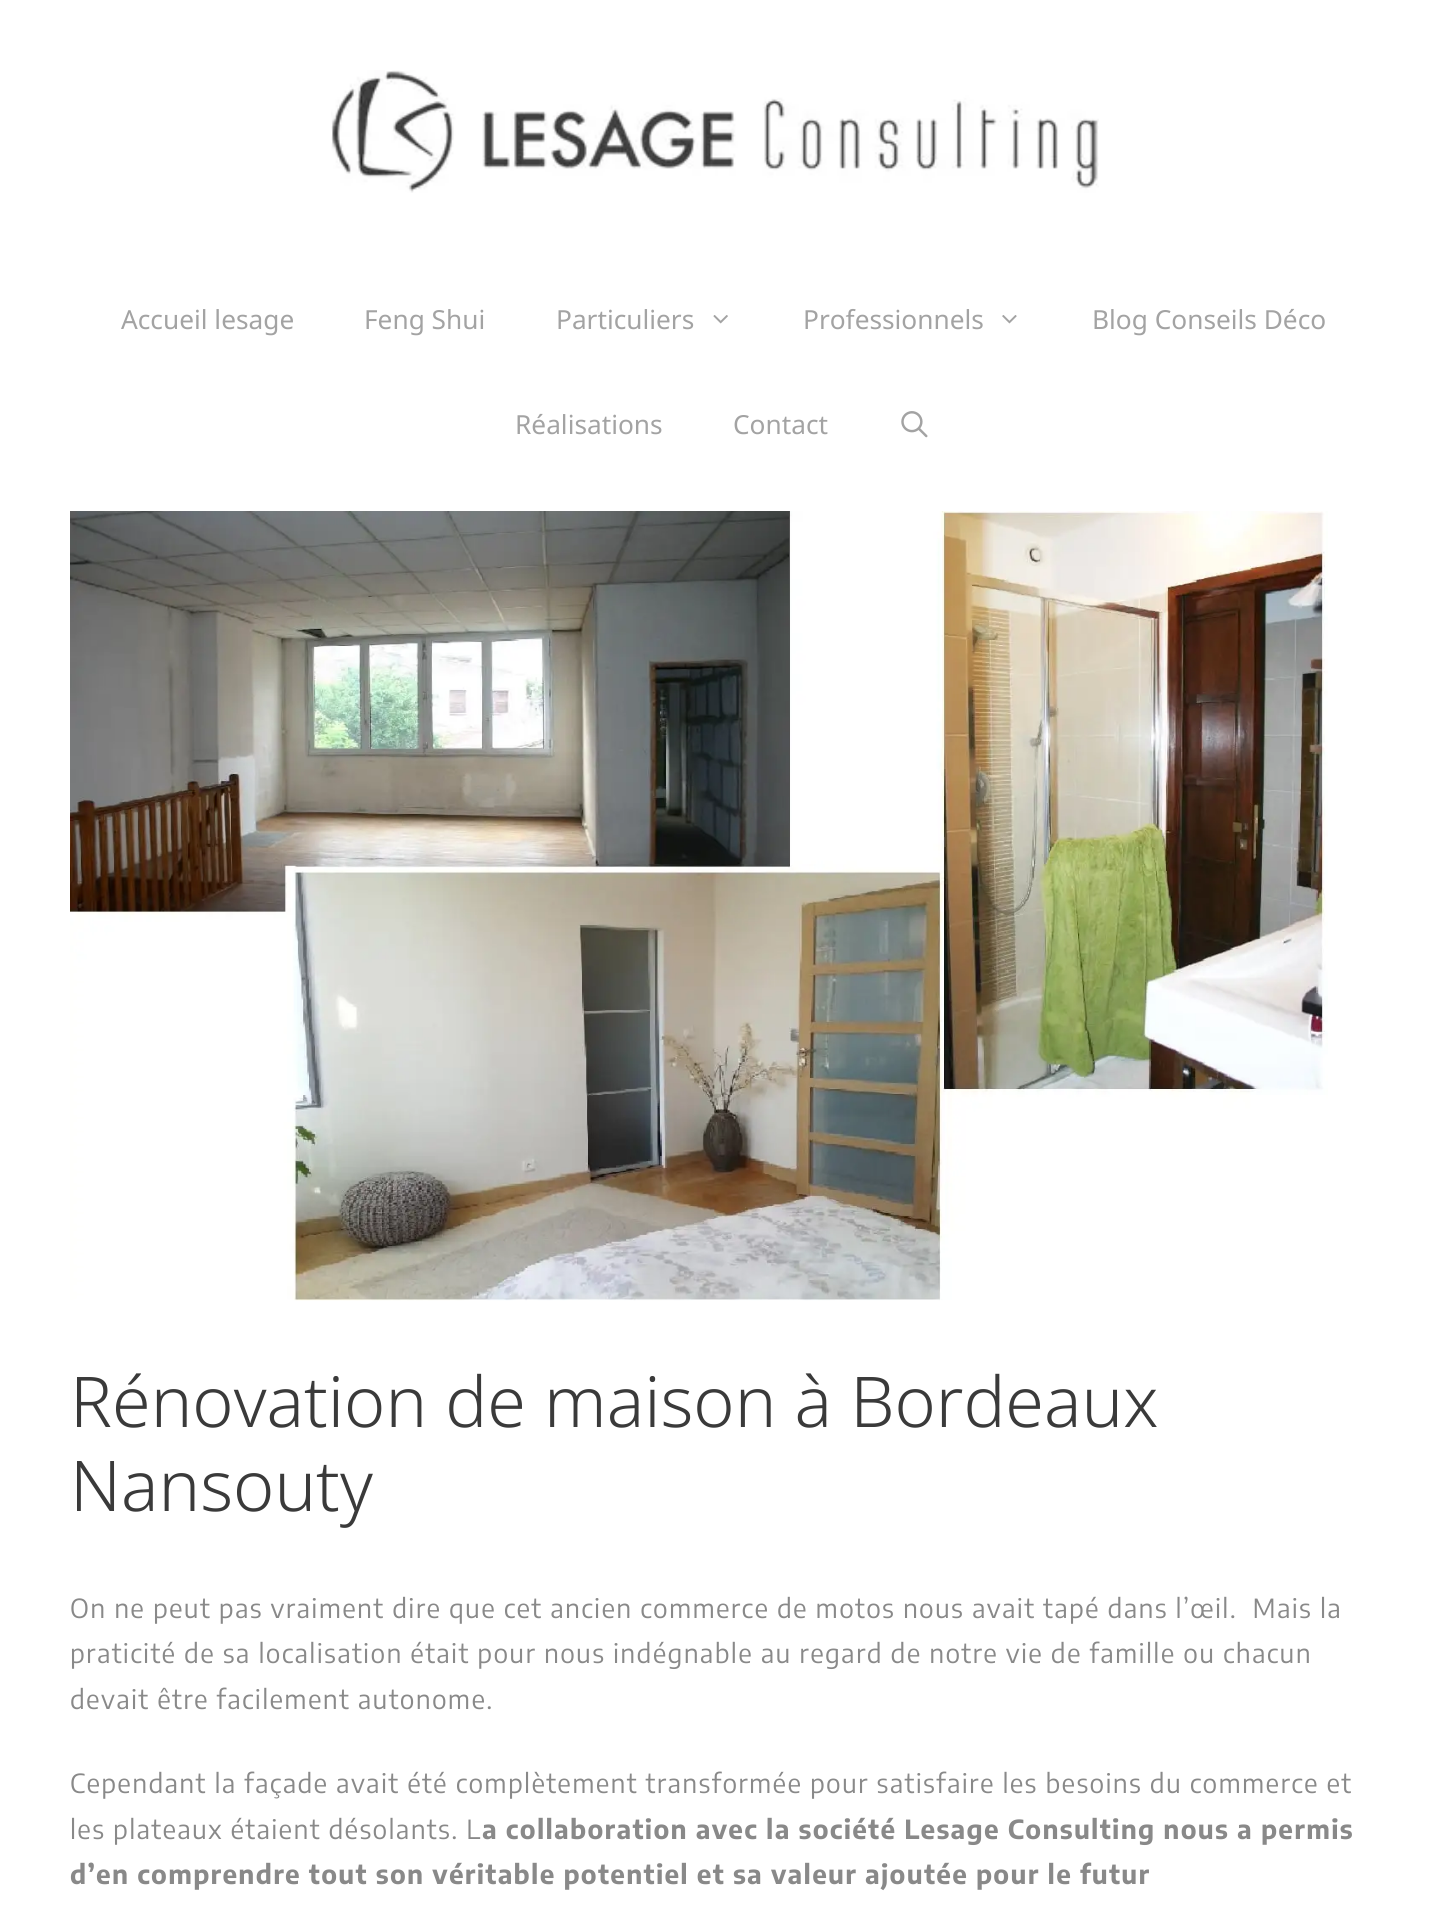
#include <cairo.h>
#include <math.h>
#include <stddef.h>

typedef struct { double x, y; const char *s; } line_t;

static void ink(cairo_t *ctx, unsigned color) {
    cairo_set_source_rgb(ctx, (color >> 16) / 255.0, (color >> 8 & 255) / 255.0, (color & 255) / 255.0);
}

static void write_spaced(cairo_t *ctx, double x, double y, const char *s, double letter, double word) {
    cairo_move_to(ctx, x, y);
    while (*s) {
        char ch[5] = {0};
        int n = 0;
        do ch[n++] = *s++; while ((*s & 0xC0) == 0x80);
        cairo_show_text(ctx, ch);
        cairo_rel_move_to(ctx, letter + word * (*ch == ' '), 0);
    }
}

static void paste(cairo_t *ctx, const char *path, double x, double y, double w, double h) {
    cairo_surface_t *image = cairo_image_surface_create_from_png(path);
    cairo_save(ctx);
    cairo_set_source_surface(ctx, image, x, y);
    cairo_rectangle(ctx, x, y, w, h);
    cairo_fill(ctx);
    cairo_restore(ctx);
    cairo_surface_destroy(image);
}

int main(void) {
    cairo_surface_t *surface = cairo_image_surface_create(CAIRO_FORMAT_RGB24, 1446, 1928);
    cairo_t *ctx = cairo_create(surface);
    cairo_font_options_t *options = cairo_font_options_create();
    cairo_font_options_set_hint_metrics(options, CAIRO_HINT_METRICS_OFF);
    cairo_font_options_set_hint_style(options, CAIRO_HINT_STYLE_NONE);
    cairo_set_font_options(ctx, options);
    cairo_set_miter_limit(ctx, 4);
    ink(ctx, 0xFFFFFF);
    cairo_paint(ctx);
    paste(ctx, "media/1.png", 331, 70, 768, 123);
    cairo_select_font_face(ctx, "Noto Sans", CAIRO_FONT_SLANT_NORMAL, CAIRO_FONT_WEIGHT_NORMAL);
    cairo_set_font_size(ctx, 26.25);
    ink(ctx, 0xA3A3A3);
    {
        static const line_t items[] = {
            {121, 329, "Accueil lesage"},
            {364, 329, "Feng Shui"},
            {556, 329, "Particuliers"},
        };
        for (size_t i = 0; i < sizeof items / sizeof *items; i++) {
            cairo_move_to(ctx, items[i].x, items[i].y);
            cairo_show_text(ctx, items[i].s);
        }
    }
    paste(ctx, "media/2.png", 713, 315, 15, 9);
    cairo_move_to(ctx, 803, 329);
    cairo_show_text(ctx, "Professionnels");
    paste(ctx, "media/3.png", 1002, 315, 15, 9);
    {
        static const line_t items[] = {
            {1092, 329, "Blog Conseils Déco"},
            {515, 434, "Réalisations"},
            {733, 434, "Contact"},
        };
        for (size_t i = 0; i < sizeof items / sizeof *items; i++) {
            cairo_move_to(ctx, items[i].x, items[i].y);
            cairo_show_text(ctx, items[i].s);
        }
    }
    paste(ctx, "media/4.png", 901, 411, 27, 27);
    paste(ctx, "media/5.png", 70, 511, 1258, 790);
    cairo_select_font_face(ctx, "Noto Sans Light", CAIRO_FONT_SLANT_NORMAL, CAIRO_FONT_WEIGHT_NORMAL);
    cairo_set_font_size(ctx, 70);
    ink(ctx, 0x3A3A3A);
    cairo_move_to(ctx, 70, 1427);
    cairo_show_text(ctx, "Rénovation de maison à Bordeaux");
    cairo_move_to(ctx, 70, 1511);
    cairo_show_text(ctx, "Nansouty");
    cairo_select_font_face(ctx, "Encode Sans", CAIRO_FONT_SLANT_NORMAL, CAIRO_FONT_WEIGHT_NORMAL);
    cairo_set_font_size(ctx, 26.25);
    ink(ctx, 0x898989);
    {
        static const line_t items[] = {
            {70, 1618, "On ne peut pas vraiment dire que cet ancien commerce de motos nous avait tapé dans l’œil.  Mais la"},
            {70, 1663, "praticité de sa localisation était pour nous indégnable au regard de notre vie de famille ou chacun"},
            {70, 1709, "devait être facilement autonome."},
            {70, 1793, "Cependant la façade avait été complètement transformée pour satisfaire les besoins du commerce et"},
            {70, 1839, "les plateaux étaient désolants. L"},
        };
        for (size_t i = 0; i < sizeof items / sizeof *items; i++) {
            write_spaced(ctx, items[i].x, items[i].y, items[i].s, 1.3, 0);
        }
    }
    cairo_select_font_face(ctx, "Encode Sans", CAIRO_FONT_SLANT_NORMAL, CAIRO_FONT_WEIGHT_BOLD);
    write_spaced(ctx, 482, 1839, "a collaboration avec la société Lesage Consulting nous a permis", 1.3, 0);
    write_spaced(ctx, 70, 1884, "d’en comprendre tout son véritable potentiel et sa valeur ajoutée pour le futur", 1.3, 0);
    cairo_surface_write_to_png(surface, "image.png");
    cairo_font_options_destroy(options);
    cairo_destroy(ctx);
    cairo_surface_destroy(surface);
    return 0;
}
